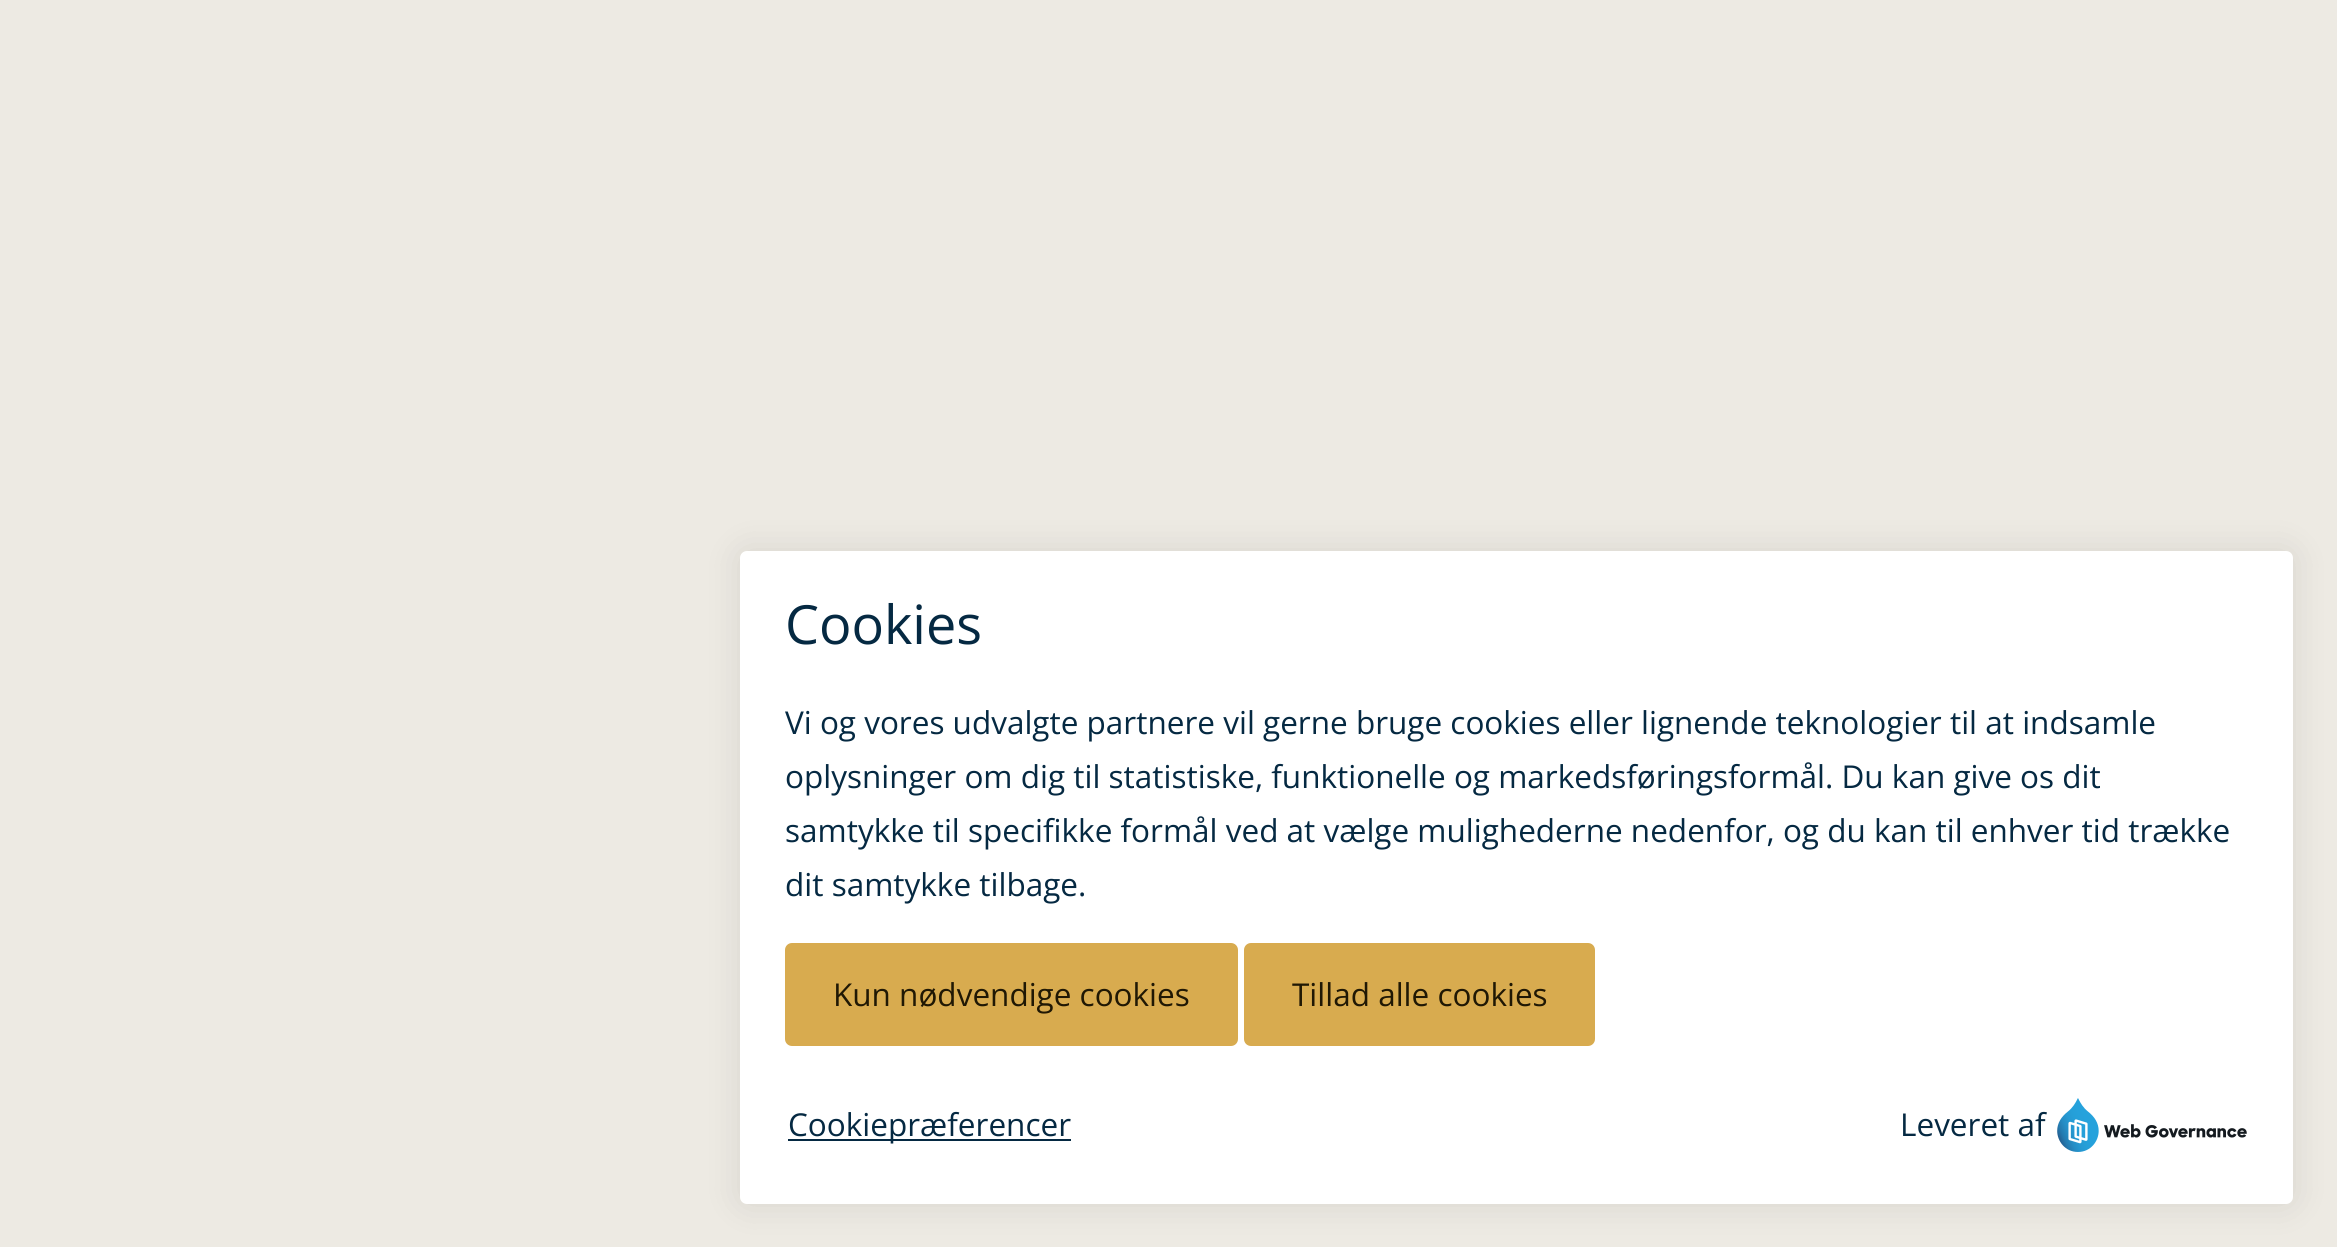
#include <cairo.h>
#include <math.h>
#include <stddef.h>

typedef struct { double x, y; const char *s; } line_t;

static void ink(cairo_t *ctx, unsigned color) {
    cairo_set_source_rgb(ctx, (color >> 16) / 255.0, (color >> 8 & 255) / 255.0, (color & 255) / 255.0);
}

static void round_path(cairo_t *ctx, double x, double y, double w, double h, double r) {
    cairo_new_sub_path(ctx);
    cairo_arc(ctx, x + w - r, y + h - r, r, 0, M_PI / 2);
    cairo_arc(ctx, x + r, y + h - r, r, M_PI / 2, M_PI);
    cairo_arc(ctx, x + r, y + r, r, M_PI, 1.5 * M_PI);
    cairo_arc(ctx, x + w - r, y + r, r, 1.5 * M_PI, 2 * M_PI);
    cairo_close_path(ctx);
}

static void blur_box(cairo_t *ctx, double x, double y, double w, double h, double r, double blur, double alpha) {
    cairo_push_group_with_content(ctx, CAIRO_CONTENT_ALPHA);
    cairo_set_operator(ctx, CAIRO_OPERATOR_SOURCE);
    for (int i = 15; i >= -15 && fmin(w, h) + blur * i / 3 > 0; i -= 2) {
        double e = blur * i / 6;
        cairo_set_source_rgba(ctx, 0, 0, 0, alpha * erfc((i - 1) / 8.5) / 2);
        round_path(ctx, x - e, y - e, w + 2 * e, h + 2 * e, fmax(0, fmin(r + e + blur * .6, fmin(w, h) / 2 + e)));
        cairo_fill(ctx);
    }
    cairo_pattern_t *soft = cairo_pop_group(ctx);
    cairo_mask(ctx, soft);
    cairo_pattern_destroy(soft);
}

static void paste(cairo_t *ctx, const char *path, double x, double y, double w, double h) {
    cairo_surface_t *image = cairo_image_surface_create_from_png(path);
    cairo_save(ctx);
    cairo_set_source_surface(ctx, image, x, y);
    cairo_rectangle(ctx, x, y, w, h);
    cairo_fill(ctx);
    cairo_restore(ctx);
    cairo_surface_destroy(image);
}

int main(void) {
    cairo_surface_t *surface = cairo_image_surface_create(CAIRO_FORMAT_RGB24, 2337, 1247);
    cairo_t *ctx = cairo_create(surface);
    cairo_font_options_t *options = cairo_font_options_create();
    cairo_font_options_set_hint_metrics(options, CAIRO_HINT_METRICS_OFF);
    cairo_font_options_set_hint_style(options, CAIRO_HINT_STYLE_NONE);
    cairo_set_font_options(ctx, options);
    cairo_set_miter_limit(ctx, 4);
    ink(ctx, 0xEDEAE3);
    cairo_paint(ctx);
    ink(ctx, 0x000000);
    blur_box(ctx, 740, 551, 1553, 653, 7, 17, 0.1);
    ink(ctx, 0xFFFFFF);
    round_path(ctx, 740, 551, 1553, 653, 7);
    cairo_fill(ctx);
    cairo_select_font_face(ctx, "Open Sans", CAIRO_FONT_SLANT_NORMAL, CAIRO_FONT_WEIGHT_NORMAL);
    cairo_set_font_size(ctx, 54);
    ink(ctx, 0x052942);
    cairo_move_to(ctx, 785, 644);
    cairo_show_text(ctx, "Cookies");
    cairo_set_font_size(ctx, 31.5);
    {
        static const line_t items[] = {
            {785, 734, "Vi og vores udvalgte partnere vil gerne bruge cookies eller lignende teknologier til at indsamle"},
            {785, 788, "oplysninger om dig til statistiske, funktionelle og markedsføringsformål. Du kan give os dit"},
            {785, 842, "samtykke til specifikke formål ved at vælge mulighederne nedenfor, og du kan til enhver tid trække"},
            {785, 896, "dit samtykke tilbage."},
        };
        for (size_t i = 0; i < sizeof items / sizeof *items; i++) {
            cairo_move_to(ctx, items[i].x, items[i].y);
            cairo_show_text(ctx, items[i].s);
        }
    }
    ink(ctx, 0xD8AB4F);
    round_path(ctx, 785, 943, 453, 103, 7);
    cairo_fill(ctx);
    ink(ctx, 0x201804);
    cairo_move_to(ctx, 833, 1006);
    cairo_show_text(ctx, "Kun nødvendige cookies");
    ink(ctx, 0xD8AB4F);
    round_path(ctx, 1244, 943, 351, 103, 7);
    cairo_fill(ctx);
    ink(ctx, 0x201804);
    cairo_move_to(ctx, 1292, 1006);
    cairo_show_text(ctx, "Tillad alle cookies");
    ink(ctx, 0x052942);
    cairo_rectangle(ctx, 788, 1139, 283, 2);
    cairo_fill(ctx);
    cairo_move_to(ctx, 788, 1136);
    cairo_show_text(ctx, "Cookiepræferencer");
    cairo_move_to(ctx, 1900, 1136);
    cairo_show_text(ctx, "Leveret af");
    paste(ctx, "media/1.png", 2057, 1098, 190, 54);
    cairo_surface_write_to_png(surface, "image.png");
    cairo_font_options_destroy(options);
    cairo_destroy(ctx);
    cairo_surface_destroy(surface);
    return 0;
}
